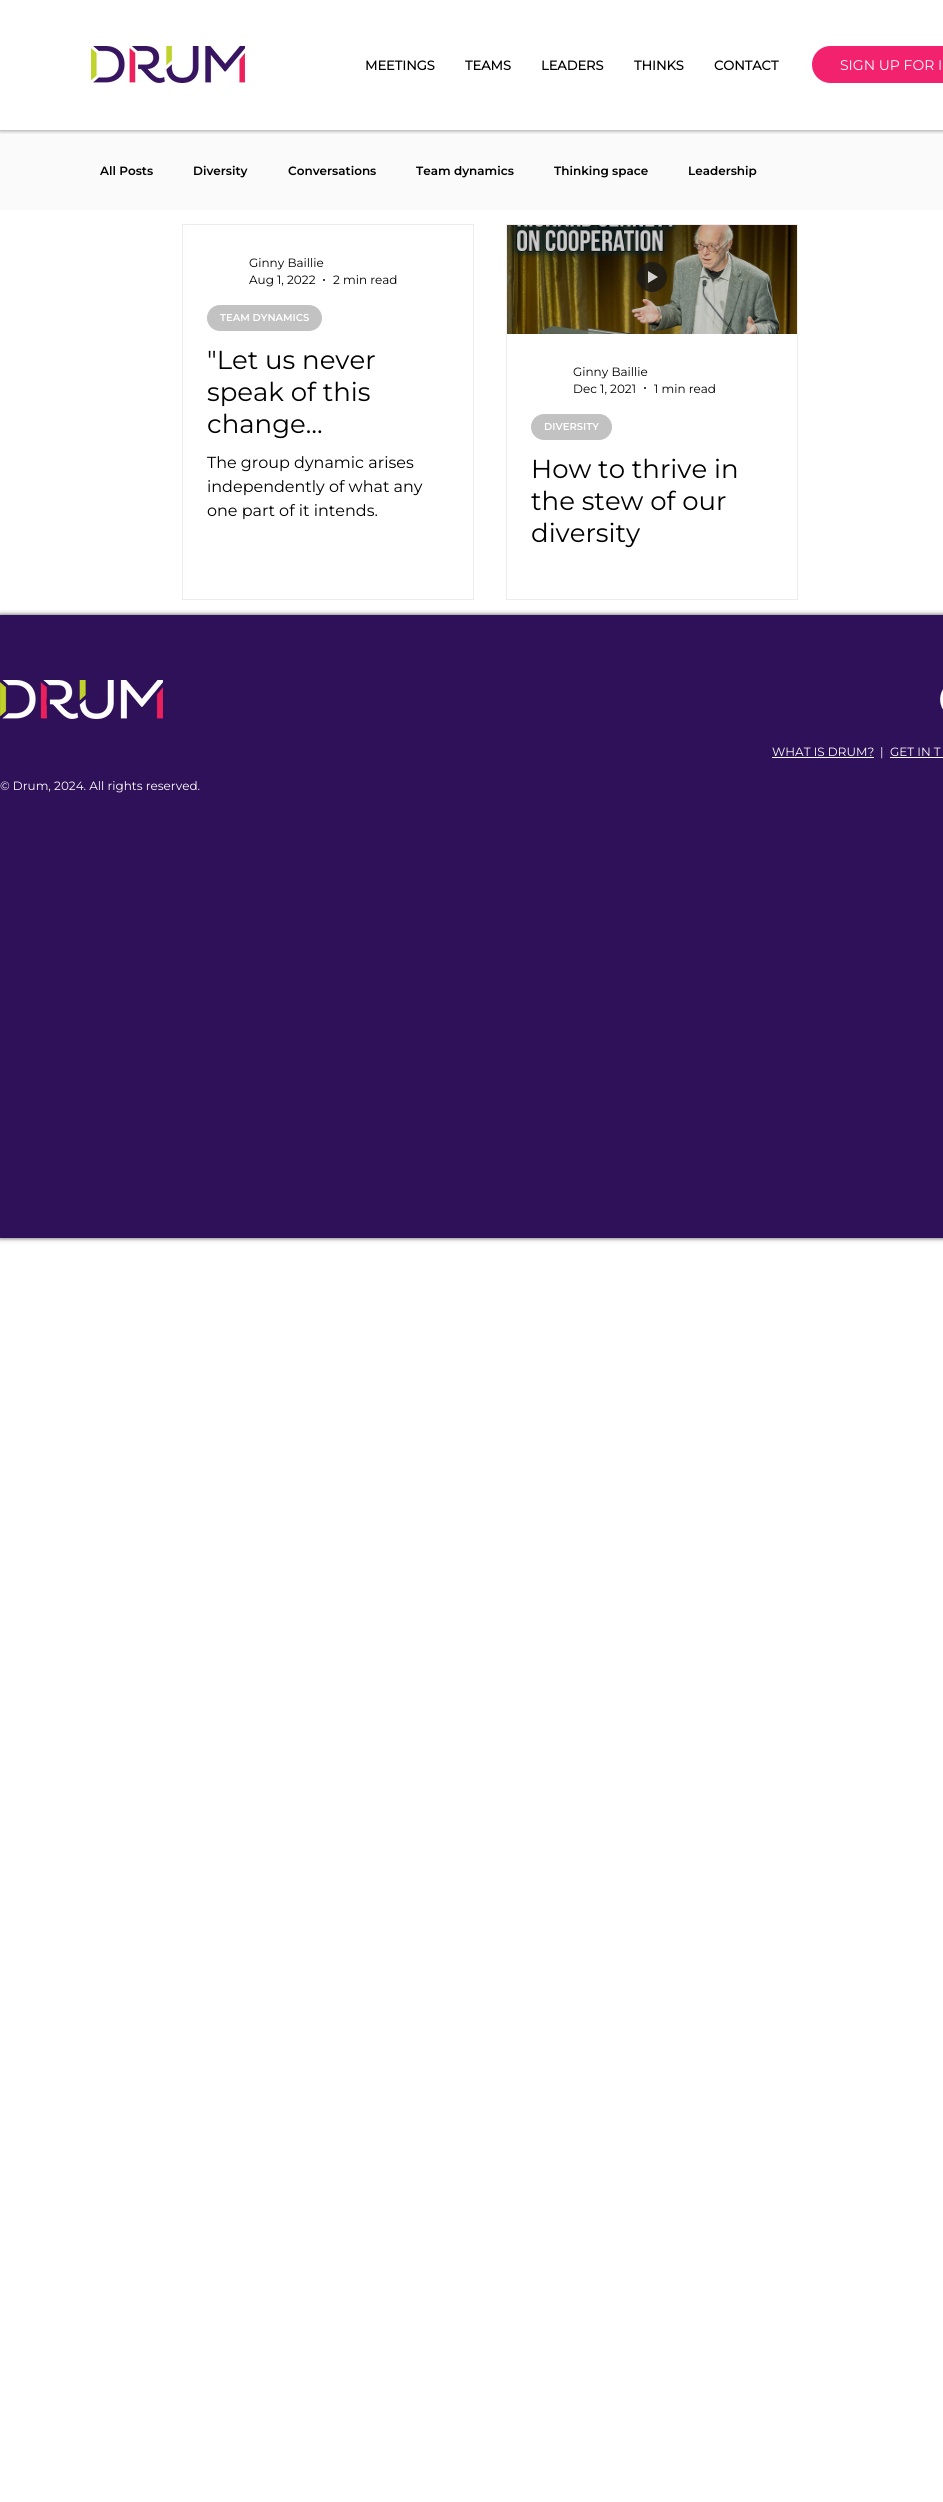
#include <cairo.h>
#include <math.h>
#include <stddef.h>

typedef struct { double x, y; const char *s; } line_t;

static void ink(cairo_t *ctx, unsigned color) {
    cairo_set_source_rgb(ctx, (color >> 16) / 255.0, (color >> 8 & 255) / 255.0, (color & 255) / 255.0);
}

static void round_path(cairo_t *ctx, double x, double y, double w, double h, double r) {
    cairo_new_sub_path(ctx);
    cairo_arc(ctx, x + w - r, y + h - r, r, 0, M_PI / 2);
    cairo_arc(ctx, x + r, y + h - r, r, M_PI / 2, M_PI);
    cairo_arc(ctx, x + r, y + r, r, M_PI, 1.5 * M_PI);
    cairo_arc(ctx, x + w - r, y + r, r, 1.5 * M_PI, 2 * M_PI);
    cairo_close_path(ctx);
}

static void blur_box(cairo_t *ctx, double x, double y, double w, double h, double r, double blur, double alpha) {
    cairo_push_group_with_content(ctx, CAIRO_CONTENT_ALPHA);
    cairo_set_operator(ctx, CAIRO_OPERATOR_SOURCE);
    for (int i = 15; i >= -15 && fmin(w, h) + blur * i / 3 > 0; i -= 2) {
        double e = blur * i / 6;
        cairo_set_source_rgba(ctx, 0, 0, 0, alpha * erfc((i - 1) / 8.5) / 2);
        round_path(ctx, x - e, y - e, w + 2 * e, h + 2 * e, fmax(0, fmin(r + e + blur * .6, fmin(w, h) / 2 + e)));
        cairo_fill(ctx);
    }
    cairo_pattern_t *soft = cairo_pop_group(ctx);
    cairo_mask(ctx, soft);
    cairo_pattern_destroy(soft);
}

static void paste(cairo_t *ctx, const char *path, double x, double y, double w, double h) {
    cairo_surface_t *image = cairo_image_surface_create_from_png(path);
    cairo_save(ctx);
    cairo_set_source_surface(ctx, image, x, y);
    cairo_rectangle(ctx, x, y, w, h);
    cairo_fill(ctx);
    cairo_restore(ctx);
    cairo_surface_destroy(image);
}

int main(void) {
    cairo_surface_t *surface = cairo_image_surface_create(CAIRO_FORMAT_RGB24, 943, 2502);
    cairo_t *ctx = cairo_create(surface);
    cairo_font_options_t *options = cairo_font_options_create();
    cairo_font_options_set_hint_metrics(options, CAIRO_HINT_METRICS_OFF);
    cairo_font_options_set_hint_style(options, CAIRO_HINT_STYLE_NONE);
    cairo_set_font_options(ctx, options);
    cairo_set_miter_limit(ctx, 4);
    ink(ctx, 0xFFFFFF);
    cairo_paint(ctx);
    ink(ctx, 0xFAFAFA);
    cairo_rectangle(ctx, 0, 130, 943, 80);
    cairo_fill(ctx);
    cairo_save(ctx);
    cairo_rectangle(ctx, 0, 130, 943, 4);
    cairo_clip(ctx);
    ink(ctx, 0x000000);
    blur_box(ctx, 0, 0, 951, 130, 0, 2.5, 0.5);
    cairo_restore(ctx);
    paste(ctx, "media/1.png", 91, 46, 154, 37);
    cairo_select_font_face(ctx, "Montserrat", CAIRO_FONT_SLANT_NORMAL, CAIRO_FONT_WEIGHT_BOLD);
    cairo_set_font_size(ctx, 13);
    ink(ctx, 0x000000);
    {
        static const line_t items[] = {
            {365, 70, "MEETINGS"},
            {465, 70, "TEAMS"},
            {541, 70, "LEADERS"},
            {634, 70, "THINKS"},
            {714, 70, "CONTACT"},
        };
        for (size_t i = 0; i < sizeof items / sizeof *items; i++) {
            cairo_move_to(ctx, items[i].x, items[i].y);
            cairo_show_text(ctx, items[i].s);
        }
    }
    ink(ctx, 0xF2226E);
    round_path(ctx, 812, 46, 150, 37, 18.5);
    cairo_fill(ctx);
    cairo_select_font_face(ctx, "Montserrat", CAIRO_FONT_SLANT_NORMAL, CAIRO_FONT_WEIGHT_NORMAL);
    cairo_set_font_size(ctx, 14);
    ink(ctx, 0xFFFFFF);
    cairo_move_to(ctx, 840, 70);
    cairo_show_text(ctx, "SIGN UP FOR I");
    cairo_select_font_face(ctx, "Montserrat SemiBold", CAIRO_FONT_SLANT_NORMAL, CAIRO_FONT_WEIGHT_NORMAL);
    cairo_set_font_size(ctx, 12);
    ink(ctx, 0x000000);
    {
        static const line_t items[] = {
            {100, 175, "All Posts"},
            {193, 175, "Diversity"},
            {288, 175, "Conversations"},
            {416, 175, "Team dynamics"},
            {554, 175, "Thinking space"},
            {688, 175, "Leadership"},
        };
        for (size_t i = 0; i < sizeof items / sizeof *items; i++) {
            cairo_move_to(ctx, items[i].x, items[i].y);
            cairo_show_text(ctx, items[i].s);
        }
    }
    cairo_rectangle(ctx, 182.5, 224.5, 291, 375);
    ink(ctx, 0xEEECEC);
    cairo_set_line_width(ctx, 1);
    cairo_stroke(ctx);
    cairo_select_font_face(ctx, "Montserrat", CAIRO_FONT_SLANT_NORMAL, CAIRO_FONT_WEIGHT_NORMAL);
    ink(ctx, 0x000000);
    cairo_move_to(ctx, 249, 267);
    cairo_show_text(ctx, "Ginny Baillie");
    cairo_move_to(ctx, 249, 284);
    cairo_show_text(ctx, "Aug 1, 2022");
    cairo_new_path(ctx);
    cairo_arc(ctx, 324, 280, 1, 0, 2 * M_PI);
    cairo_fill(ctx);
    cairo_move_to(ctx, 333, 284);
    cairo_show_text(ctx, "2 min read");
    ink(ctx, 0xC2C2C2);
    round_path(ctx, 207.5, 305.5, 114, 25, 12.5);
    cairo_fill_preserve(ctx);
    cairo_stroke(ctx);
    cairo_select_font_face(ctx, "Montserrat SemiBold", CAIRO_FONT_SLANT_NORMAL, CAIRO_FONT_WEIGHT_NORMAL);
    cairo_set_font_size(ctx, 10);
    ink(ctx, 0xFFFFFF);
    cairo_move_to(ctx, 220, 321);
    cairo_show_text(ctx, "TEAM DYNAMICS");
    cairo_select_font_face(ctx, "Montserrat", CAIRO_FONT_SLANT_NORMAL, CAIRO_FONT_WEIGHT_NORMAL);
    cairo_set_font_size(ctx, 26);
    ink(ctx, 0x000000);
    {
        static const line_t items[] = {
            {207, 369, "\"Let us never"},
            {207, 401, "speak of this"},
            {207, 433, "change…"},
        };
        for (size_t i = 0; i < sizeof items / sizeof *items; i++) {
            cairo_move_to(ctx, items[i].x, items[i].y);
            cairo_show_text(ctx, items[i].s);
        }
    }
    cairo_set_font_size(ctx, 16);
    {
        static const line_t items[] = {
            {207, 468, "The group dynamic arises"},
            {207, 492, "independently of what any"},
            {207, 516, "one part of it intends."},
        };
        for (size_t i = 0; i < sizeof items / sizeof *items; i++) {
            cairo_move_to(ctx, items[i].x, items[i].y);
            cairo_show_text(ctx, items[i].s);
        }
    }
    cairo_rectangle(ctx, 506.5, 224.5, 291, 375);
    ink(ctx, 0xEEECEC);
    cairo_stroke(ctx);
    paste(ctx, "media/2.png", 507, 225, 290, 109);
    cairo_set_source_rgba(ctx, 0.102, 0.102, 0.102, 0.8);
    cairo_arc(ctx, 652, 277, 15, 0, 2 * M_PI);
    cairo_fill(ctx);
    cairo_set_source_rgba(ctx, 1, 1, 1, 0.8);
    cairo_new_path(ctx);
    cairo_move_to(ctx, 648, 271);
    cairo_line_to(ctx, 648, 283);
    cairo_line_to(ctx, 658, 277);
    cairo_close_path(ctx);
    cairo_fill(ctx);
    cairo_set_font_size(ctx, 12);
    ink(ctx, 0x000000);
    cairo_move_to(ctx, 573, 376);
    cairo_show_text(ctx, "Ginny Baillie");
    cairo_move_to(ctx, 573, 393);
    cairo_show_text(ctx, "Dec 1, 2021");
    cairo_new_path(ctx);
    cairo_arc(ctx, 645, 388, 1, 0, 2 * M_PI);
    cairo_fill(ctx);
    cairo_move_to(ctx, 654, 393);
    cairo_show_text(ctx, "1 min read");
    ink(ctx, 0xC2C2C2);
    round_path(ctx, 531.5, 414.5, 80, 25, 12.5);
    cairo_fill_preserve(ctx);
    cairo_stroke(ctx);
    cairo_select_font_face(ctx, "Montserrat SemiBold", CAIRO_FONT_SLANT_NORMAL, CAIRO_FONT_WEIGHT_NORMAL);
    cairo_set_font_size(ctx, 10);
    ink(ctx, 0xFFFFFF);
    cairo_move_to(ctx, 544, 430);
    cairo_show_text(ctx, "DIVERSITY");
    cairo_select_font_face(ctx, "Montserrat", CAIRO_FONT_SLANT_NORMAL, CAIRO_FONT_WEIGHT_NORMAL);
    cairo_set_font_size(ctx, 26);
    ink(ctx, 0x000000);
    {
        static const line_t items[] = {
            {531, 478, "How to thrive in"},
            {531, 510, "the stew of our"},
            {531, 542, "diversity"},
        };
        for (size_t i = 0; i < sizeof items / sizeof *items; i++) {
            cairo_move_to(ctx, items[i].x, items[i].y);
            cairo_show_text(ctx, items[i].s);
        }
    }
    ink(ctx, 0x000000);
    blur_box(ctx, 0, 615, 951, 623, 0, 2.5, 0.7);
    ink(ctx, 0x2F1159);
    cairo_rectangle(ctx, 0, 615, 943, 623);
    cairo_fill(ctx);
    paste(ctx, "media/3.png", 940, 689, 3, 21);
    cairo_set_font_size(ctx, 12);
    ink(ctx, 0xFFFFFF);
    cairo_move_to(ctx, 772, 756);
    cairo_show_text(ctx, "WHAT IS DRUM?");
    cairo_rectangle(ctx, 772, 757, 102, 1);
    cairo_fill(ctx);
    cairo_move_to(ctx, 880, 756);
    cairo_show_text(ctx, "|");
    cairo_move_to(ctx, 890, 756);
    cairo_show_text(ctx, "GET IN T");
    cairo_rectangle(ctx, 890, 757, 53, 1);
    cairo_fill(ctx);
    paste(ctx, "media/4.png", 0, 680, 163, 39);
    cairo_move_to(ctx, 0, 790);
    cairo_show_text(ctx, "© Drum, 2024. All rights reserved.");
    cairo_surface_write_to_png(surface, "image.png");
    cairo_font_options_destroy(options);
    cairo_destroy(ctx);
    cairo_surface_destroy(surface);
    return 0;
}
